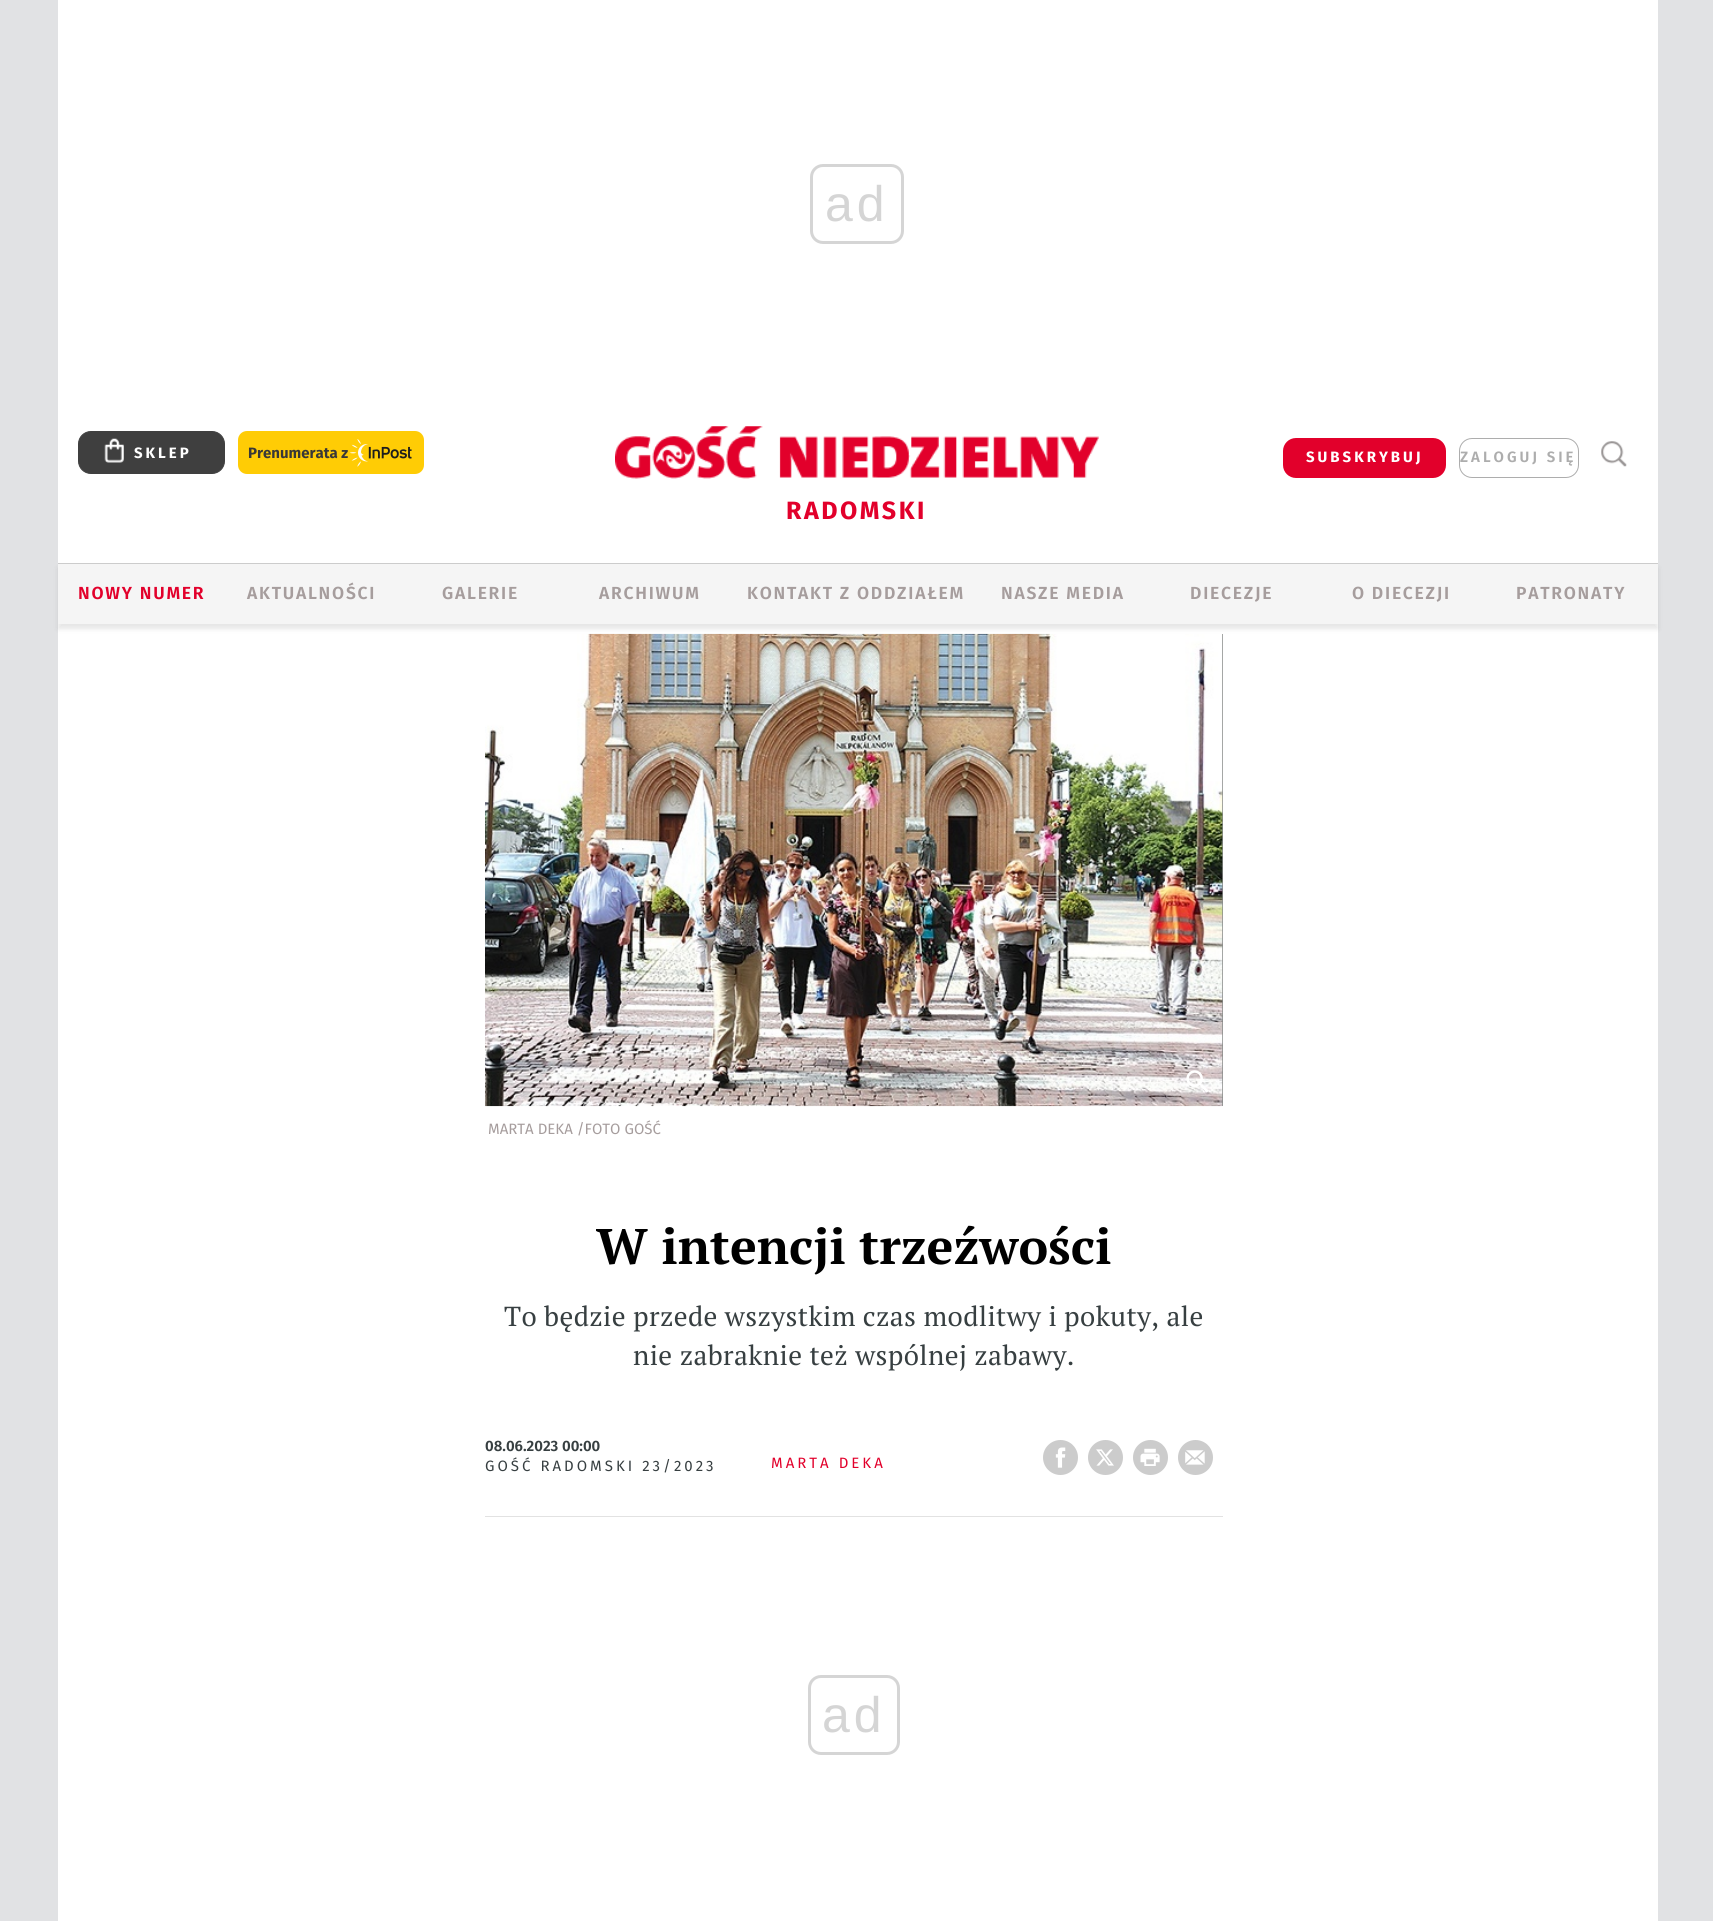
#include <cairo.h>
#include <math.h>
#include <stddef.h>

typedef struct { double x, y; const char *s; } line_t;

static void ink(cairo_t *ctx, unsigned color) {
    cairo_set_source_rgb(ctx, (color >> 16) / 255.0, (color >> 8 & 255) / 255.0, (color & 255) / 255.0);
}

static void write_spaced(cairo_t *ctx, double x, double y, const char *s, double letter, double word) {
    cairo_move_to(ctx, x, y);
    while (*s) {
        char ch[5] = {0};
        int n = 0;
        do ch[n++] = *s++; while ((*s & 0xC0) == 0x80);
        cairo_show_text(ctx, ch);
        cairo_rel_move_to(ctx, letter + word * (*ch == ' '), 0);
    }
}

static void round_path(cairo_t *ctx, double x, double y, double w, double h, double r) {
    cairo_new_sub_path(ctx);
    cairo_arc(ctx, x + w - r, y + h - r, r, 0, M_PI / 2);
    cairo_arc(ctx, x + r, y + h - r, r, M_PI / 2, M_PI);
    cairo_arc(ctx, x + r, y + r, r, M_PI, 1.5 * M_PI);
    cairo_arc(ctx, x + w - r, y + r, r, 1.5 * M_PI, 2 * M_PI);
    cairo_close_path(ctx);
}

static void blur_box(cairo_t *ctx, double x, double y, double w, double h, double r, double blur, double alpha) {
    cairo_push_group_with_content(ctx, CAIRO_CONTENT_ALPHA);
    cairo_set_operator(ctx, CAIRO_OPERATOR_SOURCE);
    for (int i = 15; i >= -15 && fmin(w, h) + blur * i / 3 > 0; i -= 2) {
        double e = blur * i / 6;
        cairo_set_source_rgba(ctx, 0, 0, 0, alpha * erfc((i - 1) / 8.5) / 2);
        round_path(ctx, x - e, y - e, w + 2 * e, h + 2 * e, fmax(0, fmin(r + e + blur * .6, fmin(w, h) / 2 + e)));
        cairo_fill(ctx);
    }
    cairo_pattern_t *soft = cairo_pop_group(ctx);
    cairo_mask(ctx, soft);
    cairo_pattern_destroy(soft);
}

static void paste(cairo_t *ctx, const char *path, double x, double y, double w, double h) {
    cairo_surface_t *image = cairo_image_surface_create_from_png(path);
    cairo_save(ctx);
    cairo_set_source_surface(ctx, image, x, y);
    cairo_rectangle(ctx, x, y, w, h);
    cairo_fill(ctx);
    cairo_restore(ctx);
    cairo_surface_destroy(image);
}

int main(void) {
    cairo_surface_t *surface = cairo_image_surface_create(CAIRO_FORMAT_RGB24, 1713, 1921);
    cairo_t *ctx = cairo_create(surface);
    cairo_font_options_t *options = cairo_font_options_create();
    cairo_font_options_set_hint_metrics(options, CAIRO_HINT_METRICS_OFF);
    cairo_font_options_set_hint_style(options, CAIRO_HINT_STYLE_NONE);
    cairo_set_font_options(ctx, options);
    cairo_set_miter_limit(ctx, 4);
    ink(ctx, 0xE1E2E4);
    cairo_paint(ctx);
    ink(ctx, 0xFFFFFF);
    cairo_rectangle(ctx, 58, 0, 1600, 406);
    cairo_fill(ctx);
    round_path(ctx, 811.5, 165.5, 91, 77, 11.5);
    ink(ctx, 0xD5D5D5);
    cairo_set_line_width(ctx, 3);
    cairo_stroke(ctx);
    cairo_select_font_face(ctx, "Liberation Sans", CAIRO_FONT_SLANT_NORMAL, CAIRO_FONT_WEIGHT_NORMAL);
    cairo_set_font_size(ctx, 50);
    write_spaced(ctx, 825, 221, "ad", 4, 0);
    ink(ctx, 0xF5F5F5);
    cairo_rectangle(ctx, 58, 564, 1600, 60);
    cairo_fill(ctx);
    ink(ctx, 0xFFFFFF);
    cairo_rectangle(ctx, 58, 406, 1600, 157);
    cairo_fill(ctx);
    ink(ctx, 0x3F3F3F);
    round_path(ctx, 78.5, 431.5, 146, 42, 12.5);
    cairo_fill_preserve(ctx);
    cairo_set_line_width(ctx, 1);
    cairo_stroke(ctx);
    paste(ctx, "media/1.png", 104, 438, 20, 25);
    cairo_select_font_face(ctx, "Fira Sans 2", CAIRO_FONT_SLANT_NORMAL, CAIRO_FONT_WEIGHT_BOLD);
    cairo_set_font_size(ctx, 15);
    ink(ctx, 0xFFFFFF);
    write_spaced(ctx, 134, 458, "SKLEP", 3, 0);
    ink(ctx, 0xFFCC05);
    round_path(ctx, 238, 431, 186, 43, 9);
    cairo_fill(ctx);
    cairo_select_font_face(ctx, "Fira Sans", CAIRO_FONT_SLANT_NORMAL, CAIRO_FONT_WEIGHT_BOLD);
    ink(ctx, 0x383838);
    cairo_move_to(ctx, 248, 458);
    cairo_show_text(ctx, "Prenumerata z");
    paste(ctx, "media/2.png", 349, 439, 63, 28);
    ink(ctx, 0xE2002B);
    round_path(ctx, 1283, 438, 163, 40, 13);
    cairo_fill(ctx);
    cairo_select_font_face(ctx, "Fira Sans 2", CAIRO_FONT_SLANT_NORMAL, CAIRO_FONT_WEIGHT_BOLD);
    ink(ctx, 0xFFFFFF);
    write_spaced(ctx, 1306, 462, "SUBSKRYBUJ", 3, 0);
    round_path(ctx, 1459.5, 438.5, 119, 39, 12.5);
    ink(ctx, 0xADADAD);
    cairo_stroke(ctx);
    cairo_select_font_face(ctx, "Fira Sans SemiBold", CAIRO_FONT_SLANT_NORMAL, CAIRO_FONT_WEIGHT_NORMAL);
    write_spaced(ctx, 1460, 462, "ZALOGUJ SIĘ", 3, 0);
    paste(ctx, "media/3.png", 1601, 441, 26, 26);
    paste(ctx, "media/4.png", 615, 426, 484, 53);
    cairo_select_font_face(ctx, "Fira Sans 2", CAIRO_FONT_SLANT_NORMAL, CAIRO_FONT_WEIGHT_BOLD);
    cairo_set_font_size(ctx, 25);
    ink(ctx, 0xE2002B);
    write_spaced(ctx, 786, 519, "RADOMSKI", 2.5, 0);
    ink(ctx, 0xFFFFFF);
    cairo_rectangle(ctx, 58, 624, 1600, 1297);
    cairo_fill(ctx);
    ink(ctx, 0x878988);
    cairo_rectangle(ctx, 1222, 634, 1, 472);
    cairo_fill(ctx);
    paste(ctx, "media/5.png", 485, 633, 738, 474);
    cairo_save(ctx);
    cairo_set_fill_rule(ctx, CAIRO_FILL_RULE_EVEN_ODD);
    cairo_new_path(ctx);
    cairo_move_to(ctx, 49, 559);
    cairo_line_to(ctx, 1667, 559);
    cairo_line_to(ctx, 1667, 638);
    cairo_line_to(ctx, 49, 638);
    cairo_close_path(ctx);
    cairo_move_to(ctx, 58, 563);
    cairo_line_to(ctx, 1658, 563);
    cairo_line_to(ctx, 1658, 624);
    cairo_line_to(ctx, 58, 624);
    cairo_close_path(ctx);
    cairo_clip(ctx);
    ink(ctx, 0x000000);
    blur_box(ctx, 58, 568, 1600, 61, 0, 2.5, 0.1);
    cairo_restore(ctx);
    ink(ctx, 0xCCCCCC);
    cairo_rectangle(ctx, 58, 563, 1600, 1);
    cairo_fill(ctx);
    cairo_select_font_face(ctx, "Fira Sans SemiBold", CAIRO_FONT_SLANT_NORMAL, CAIRO_FONT_WEIGHT_NORMAL);
    cairo_set_font_size(ctx, 17.5);
    ink(ctx, 0xE2002B);
    write_spaced(ctx, 78, 599, "NOWY NUMER", 1.75, 0);
    ink(ctx, 0xA69D9D);
    {
        static const line_t items[] = {
            {247, 599, "AKTUALNOŚCI"},
            {442, 599, "GALERIE"},
            {599, 599, "ARCHIWUM"},
            {747, 599, "KONTAKT Z ODDZIAŁEM"},
            {1001, 599, "NASZE MEDIA"},
            {1190, 599, "DIECEZJE"},
            {1352, 599, "O DIECEZJI"},
            {1516, 599, "PATRONATY"},
        };
        for (size_t i = 0; i < sizeof items / sizeof *items; i++) {
            write_spaced(ctx, items[i].x, items[i].y, items[i].s, 1.75, 0);
        }
    }
    paste(ctx, "media/6.png", 1186, 1070, 22, 23);
    cairo_select_font_face(ctx, "Fira Sans", CAIRO_FONT_SLANT_NORMAL, CAIRO_FONT_WEIGHT_NORMAL);
    cairo_set_font_size(ctx, 15);
    cairo_move_to(ctx, 488, 1134);
    cairo_show_text(ctx, "MARTA DEKA /FOTO GOŚĆ");
    cairo_select_font_face(ctx, "PT Serif", CAIRO_FONT_SLANT_NORMAL, CAIRO_FONT_WEIGHT_BOLD);
    cairo_set_font_size(ctx, 50);
    ink(ctx, 0x000000);
    cairo_move_to(ctx, 596, 1264);
    cairo_show_text(ctx, "W intencji trzeźwości");
    cairo_select_font_face(ctx, "PT Serif", CAIRO_FONT_SLANT_NORMAL, CAIRO_FONT_WEIGHT_NORMAL);
    cairo_set_font_size(ctx, 27.5);
    ink(ctx, 0x373F41);
    write_spaced(ctx, 504, 1326, "To będzie przede wszystkim czas modlitwy i pokuty, ale", 0.38, 0);
    write_spaced(ctx, 633, 1365, "nie zabraknie też wspólnej zabawy.", 0.38, 0);
    ink(ctx, 0xE2E2E2);
    cairo_rectangle(ctx, 485, 1516, 738, 1);
    cairo_fill(ctx);
    cairo_select_font_face(ctx, "Fira Sans SemiBold", CAIRO_FONT_SLANT_NORMAL, CAIRO_FONT_WEIGHT_NORMAL);
    cairo_set_font_size(ctx, 15);
    ink(ctx, 0x373F41);
    cairo_move_to(ctx, 485, 1451);
    cairo_show_text(ctx, "08.06.2023 00:00");
    cairo_select_font_face(ctx, "Fira Sans", CAIRO_FONT_SLANT_NORMAL, CAIRO_FONT_WEIGHT_NORMAL);
    write_spaced(ctx, 485, 1471, "GOŚĆ RADOMSKI 23/2023", 3, 0);
    ink(ctx, 0xE2002B);
    write_spaced(ctx, 771, 1468, "MARTA DEKA", 3, 0);
    ink(ctx, 0xCCCCCC);
    cairo_new_path(ctx);
    cairo_arc(ctx, 1060.5, 1457.5, 17.5, 0, 2 * M_PI);
    cairo_fill(ctx);
    paste(ctx, "media/7.png", 1055, 1447, 11, 21);
    cairo_arc(ctx, 1105.5, 1457.5, 17.5, 0, 2 * M_PI);
    cairo_fill(ctx);
    paste(ctx, "media/8.png", 1096, 1449, 18, 17);
    cairo_arc(ctx, 1150.5, 1457.5, 17.5, 0, 2 * M_PI);
    cairo_fill(ctx);
    paste(ctx, "media/9.png", 1140, 1448, 20, 18);
    cairo_arc(ctx, 1195.5, 1457.5, 17.5, 0, 2 * M_PI);
    cairo_fill(ctx);
    paste(ctx, "media/10.png", 1185, 1450, 20, 15);
    round_path(ctx, 809.5, 1676.5, 89, 77, 11.5);
    ink(ctx, 0xD5D5D5);
    cairo_set_line_width(ctx, 3);
    cairo_stroke(ctx);
    cairo_select_font_face(ctx, "Liberation Sans", CAIRO_FONT_SLANT_NORMAL, CAIRO_FONT_WEIGHT_NORMAL);
    cairo_set_font_size(ctx, 50);
    write_spaced(ctx, 822, 1732, "ad", 4, 0);
    cairo_surface_write_to_png(surface, "image.png");
    cairo_font_options_destroy(options);
    cairo_destroy(ctx);
    cairo_surface_destroy(surface);
    return 0;
}
